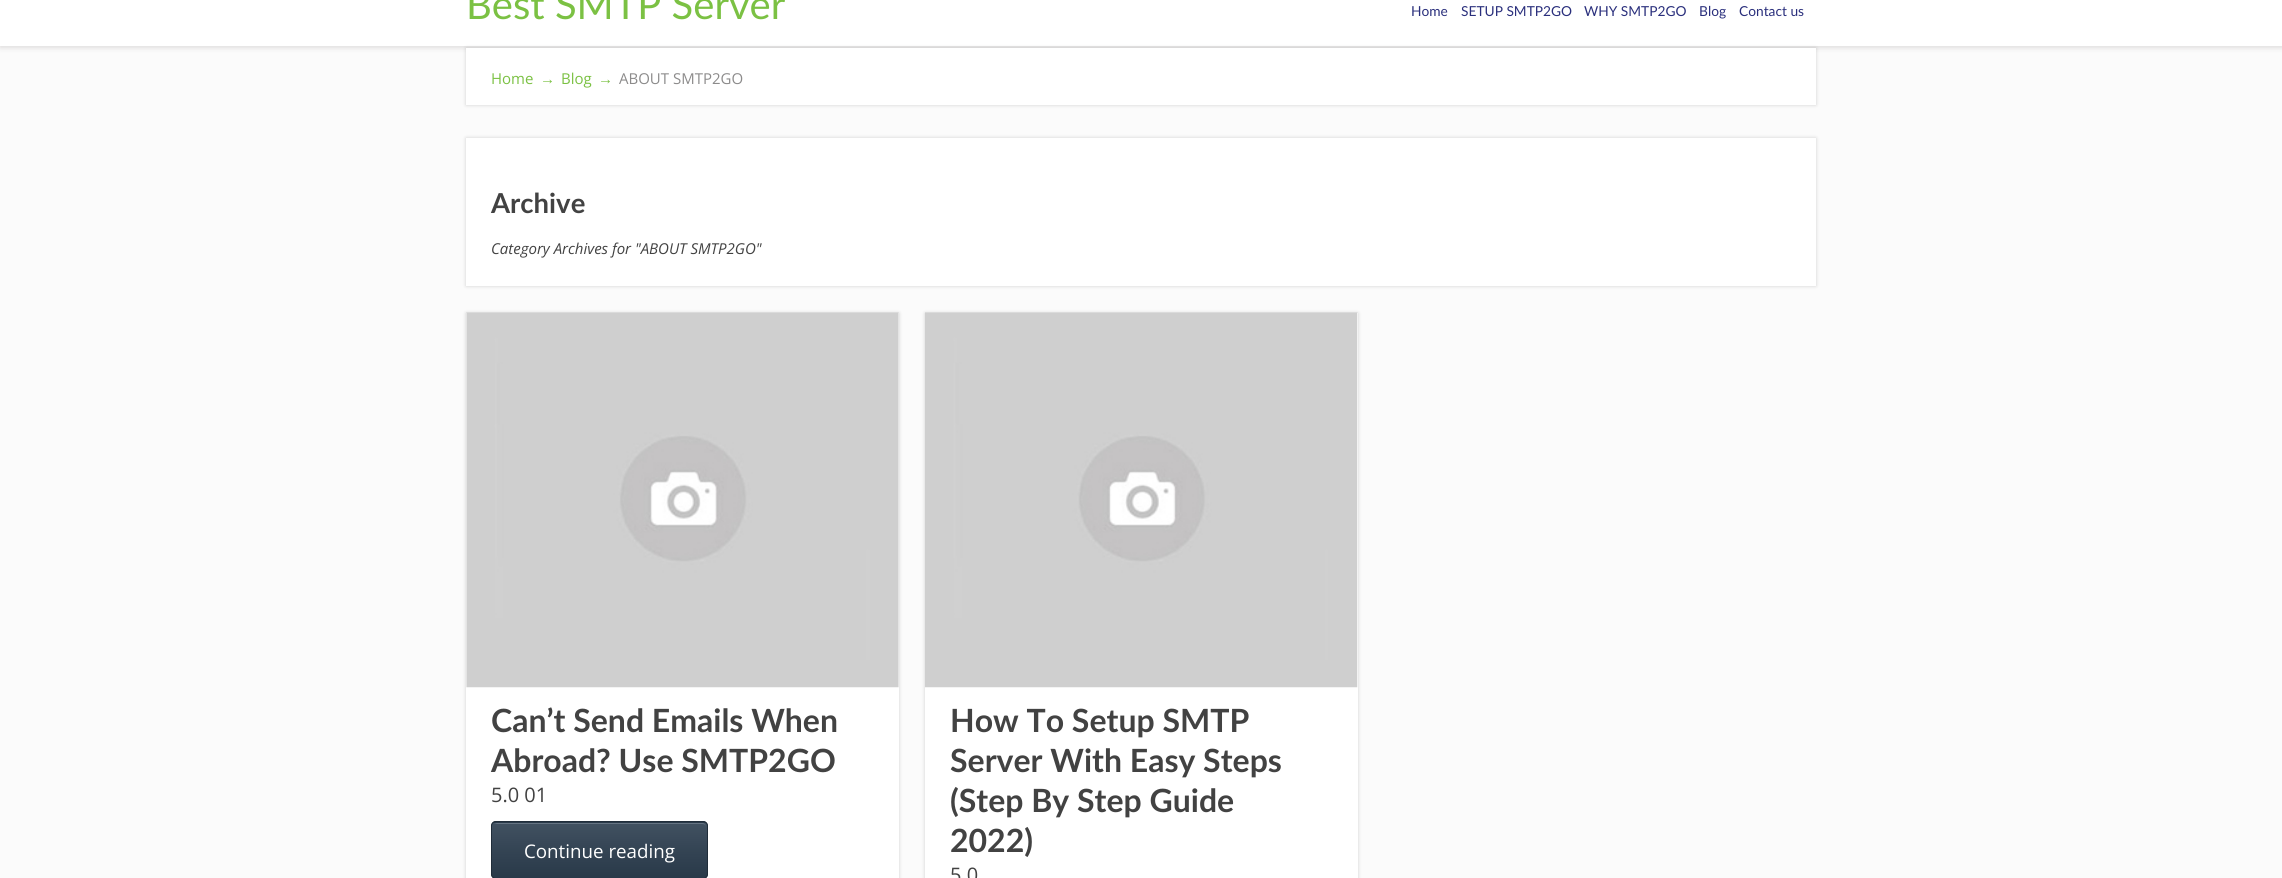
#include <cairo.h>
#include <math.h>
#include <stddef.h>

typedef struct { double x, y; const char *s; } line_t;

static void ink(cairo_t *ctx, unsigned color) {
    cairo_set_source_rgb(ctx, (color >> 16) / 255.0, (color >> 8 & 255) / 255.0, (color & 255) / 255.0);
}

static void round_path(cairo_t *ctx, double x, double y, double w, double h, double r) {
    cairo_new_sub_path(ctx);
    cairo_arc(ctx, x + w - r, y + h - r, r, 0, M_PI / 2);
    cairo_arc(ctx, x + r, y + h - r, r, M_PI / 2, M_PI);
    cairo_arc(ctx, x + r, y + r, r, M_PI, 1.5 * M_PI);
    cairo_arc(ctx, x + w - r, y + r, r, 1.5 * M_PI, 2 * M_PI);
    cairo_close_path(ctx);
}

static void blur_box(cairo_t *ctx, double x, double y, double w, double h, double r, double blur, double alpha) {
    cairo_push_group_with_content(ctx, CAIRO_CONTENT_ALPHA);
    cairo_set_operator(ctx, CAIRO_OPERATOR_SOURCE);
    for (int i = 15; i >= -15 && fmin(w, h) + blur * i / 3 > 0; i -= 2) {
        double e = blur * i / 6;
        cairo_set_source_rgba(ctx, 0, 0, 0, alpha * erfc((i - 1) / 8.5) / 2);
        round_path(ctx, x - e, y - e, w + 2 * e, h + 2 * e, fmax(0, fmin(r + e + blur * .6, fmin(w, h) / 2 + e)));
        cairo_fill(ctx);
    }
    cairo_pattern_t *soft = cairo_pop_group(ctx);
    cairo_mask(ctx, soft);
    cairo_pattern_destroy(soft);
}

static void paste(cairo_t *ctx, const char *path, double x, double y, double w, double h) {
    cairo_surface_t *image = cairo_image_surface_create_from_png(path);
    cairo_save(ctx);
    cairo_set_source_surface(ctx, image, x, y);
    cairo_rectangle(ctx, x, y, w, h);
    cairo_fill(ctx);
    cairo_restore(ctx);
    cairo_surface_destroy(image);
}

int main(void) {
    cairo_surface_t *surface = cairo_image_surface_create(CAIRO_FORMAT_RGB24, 2282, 878);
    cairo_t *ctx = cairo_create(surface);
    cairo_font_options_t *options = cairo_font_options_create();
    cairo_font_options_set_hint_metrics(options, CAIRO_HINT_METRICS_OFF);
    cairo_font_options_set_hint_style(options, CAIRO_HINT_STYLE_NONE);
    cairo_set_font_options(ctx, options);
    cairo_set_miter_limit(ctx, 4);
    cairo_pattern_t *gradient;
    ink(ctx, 0xFBFBFB);
    cairo_paint(ctx);
    ink(ctx, 0xDFDDDD);
    blur_box(ctx, 0, -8, 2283, 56, 0, 2.5, 1);
    ink(ctx, 0xFFFFFF);
    cairo_rectangle(ctx, 0, 0, 2282, 46);
    cairo_fill(ctx);
    cairo_select_font_face(ctx, "Lato", CAIRO_FONT_SLANT_NORMAL, CAIRO_FONT_WEIGHT_NORMAL);
    cairo_set_font_size(ctx, 40);
    ink(ctx, 0x7BC143);
    cairo_move_to(ctx, 466, 19);
    cairo_show_text(ctx, "Best SMTP Server");
    cairo_set_font_size(ctx, 13.75);
    ink(ctx, 0x2A2F7C);
    {
        static const line_t items[] = {
            {1411, 16, "Home"},
            {1461, 16, "SETUP SMTP2GO"},
            {1584, 16, "WHY SMTP2GO"},
            {1699, 16, "Blog"},
            {1739, 16, "Contact us"},
        };
        for (size_t i = 0; i < sizeof items / sizeof *items; i++) {
            cairo_move_to(ctx, items[i].x, items[i].y);
            cairo_show_text(ctx, items[i].s);
        }
    }
    ink(ctx, 0x010101);
    blur_box(ctx, 466, 48, 1350, 57, 0, 2, 0.16);
    ink(ctx, 0xFFFFFF);
    cairo_rectangle(ctx, 466, 48, 1350, 57);
    cairo_fill(ctx);
    cairo_select_font_face(ctx, "Open Sans", CAIRO_FONT_SLANT_NORMAL, CAIRO_FONT_WEIGHT_NORMAL);
    cairo_set_font_size(ctx, 15);
    ink(ctx, 0x7BC143);
    cairo_move_to(ctx, 491, 84);
    cairo_show_text(ctx, "Home");
    cairo_select_font_face(ctx, "Liberation Sans", CAIRO_FONT_SLANT_NORMAL, CAIRO_FONT_WEIGHT_NORMAL);
    cairo_move_to(ctx, 540, 84);
    cairo_show_text(ctx, "→");
    cairo_select_font_face(ctx, "Open Sans", CAIRO_FONT_SLANT_NORMAL, CAIRO_FONT_WEIGHT_NORMAL);
    cairo_move_to(ctx, 561, 84);
    cairo_show_text(ctx, "Blog");
    cairo_select_font_face(ctx, "Liberation Sans", CAIRO_FONT_SLANT_NORMAL, CAIRO_FONT_WEIGHT_NORMAL);
    cairo_move_to(ctx, 598, 84);
    cairo_show_text(ctx, "→");
    cairo_select_font_face(ctx, "Open Sans", CAIRO_FONT_SLANT_NORMAL, CAIRO_FONT_WEIGHT_NORMAL);
    ink(ctx, 0x8C8B8B);
    cairo_move_to(ctx, 619, 84);
    cairo_show_text(ctx, "ABOUT SMTP2GO");
    ink(ctx, 0x010101);
    blur_box(ctx, 466, 138, 1350, 148, 0, 2, 0.16);
    ink(ctx, 0xFFFFFF);
    cairo_rectangle(ctx, 466, 138, 1350, 148);
    cairo_fill(ctx);
    cairo_select_font_face(ctx, "Lato", CAIRO_FONT_SLANT_NORMAL, CAIRO_FONT_WEIGHT_BOLD);
    cairo_set_font_size(ctx, 27.5);
    ink(ctx, 0x424242);
    cairo_move_to(ctx, 491, 213);
    cairo_show_text(ctx, "Archive");
    cairo_select_font_face(ctx, "Open Sans", CAIRO_FONT_SLANT_ITALIC, CAIRO_FONT_WEIGHT_NORMAL);
    cairo_set_font_size(ctx, 15);
    cairo_move_to(ctx, 491, 254);
    cairo_show_text(ctx, "Category Archives for \"ABOUT SMTP2GO\"");
    ink(ctx, 0x010101);
    blur_box(ctx, 466, 313, 433, 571, 0, 2, 0.16);
    ink(ctx, 0xFFFFFF);
    cairo_rectangle(ctx, 466, 313, 433, 565);
    cairo_fill(ctx);
    paste(ctx, "media/1.png", 466, 312, 433, 376);
    cairo_select_font_face(ctx, "Lato", CAIRO_FONT_SLANT_NORMAL, CAIRO_FONT_WEIGHT_BOLD);
    cairo_set_font_size(ctx, 32);
    ink(ctx, 0x424242);
    cairo_move_to(ctx, 491, 732);
    cairo_show_text(ctx, "Can’t Send Emails When");
    cairo_move_to(ctx, 491, 772);
    cairo_show_text(ctx, "Abroad? Use SMTP2GO");
    cairo_select_font_face(ctx, "Open Sans", CAIRO_FONT_SLANT_NORMAL, CAIRO_FONT_WEIGHT_NORMAL);
    cairo_set_font_size(ctx, 20);
    cairo_move_to(ctx, 491, 802);
    cairo_show_text(ctx, "5.0 01");
    cairo_save(ctx);
    round_path(ctx, 491, 821, 217, 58, 5);
    cairo_clip(ctx);
    gradient = cairo_pattern_create_linear(599, 768, 599, 823);
    cairo_pattern_add_color_stop_rgba(gradient, 0, 0.255, 0.318, 0.38, 1);
    cairo_pattern_add_color_stop_rgba(gradient, 0.5, 0.204, 0.267, 0.329, 1);
    cairo_pattern_add_color_stop_rgba(gradient, 1, 0.161, 0.224, 0.286, 1);
    cairo_set_source(ctx, gradient);
    cairo_pattern_destroy(gradient);
    cairo_rectangle(ctx, 491, 821, 217, 2);
    cairo_fill(ctx);
    gradient = cairo_pattern_create_linear(599, 823, 599, 878);
    cairo_pattern_add_color_stop_rgba(gradient, 0, 0.255, 0.318, 0.38, 1);
    cairo_pattern_add_color_stop_rgba(gradient, 0.5, 0.204, 0.267, 0.329, 1);
    cairo_pattern_add_color_stop_rgba(gradient, 1, 0.161, 0.224, 0.286, 1);
    cairo_set_source(ctx, gradient);
    cairo_pattern_destroy(gradient);
    cairo_rectangle(ctx, 491, 823, 217, 55);
    cairo_fill(ctx);
    cairo_restore(ctx);
    ink(ctx, 0x667483);
    cairo_new_path(ctx);
    cairo_move_to(ctx, 496, 824);
    cairo_line_to(ctx, 702, 824);
    cairo_curve_to(ctx, 705, 824, 706, 825, 706, 828);
    cairo_curve_to(ctx, 706, 825, 705, 823, 702, 823);
    cairo_line_to(ctx, 497, 823);
    cairo_line_to(ctx, 494, 824);
    cairo_close_path(ctx);
    cairo_fill(ctx);
    round_path(ctx, 491.5, 821.5, 216, 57, 4.5);
    ink(ctx, 0x202D3A);
    cairo_set_line_width(ctx, 1);
    cairo_stroke(ctx);
    cairo_set_font_size(ctx, 18.75);
    ink(ctx, 0xFFFFFF);
    cairo_move_to(ctx, 524, 858);
    cairo_show_text(ctx, "Continue reading");
    ink(ctx, 0x010101);
    blur_box(ctx, 925, 313, 433, 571, 0, 2, 0.16);
    ink(ctx, 0xFFFFFF);
    cairo_rectangle(ctx, 925, 313, 433, 565);
    cairo_fill(ctx);
    paste(ctx, "media/2.png", 925, 312, 433, 376);
    cairo_select_font_face(ctx, "Lato", CAIRO_FONT_SLANT_NORMAL, CAIRO_FONT_WEIGHT_BOLD);
    cairo_set_font_size(ctx, 32);
    ink(ctx, 0x424242);
    {
        static const line_t items[] = {
            {950, 732, "How To Setup SMTP"},
            {950, 772, "Server With Easy Steps"},
            {950, 812, "(Step By Step Guide"},
            {950, 852, "2022)"},
        };
        for (size_t i = 0; i < sizeof items / sizeof *items; i++) {
            cairo_move_to(ctx, items[i].x, items[i].y);
            cairo_show_text(ctx, items[i].s);
        }
    }
    cairo_select_font_face(ctx, "Open Sans", CAIRO_FONT_SLANT_NORMAL, CAIRO_FONT_WEIGHT_NORMAL);
    cairo_set_font_size(ctx, 20);
    cairo_move_to(ctx, 950, 882);
    cairo_show_text(ctx, "5.0");
    cairo_surface_write_to_png(surface, "image.png");
    cairo_font_options_destroy(options);
    cairo_destroy(ctx);
    cairo_surface_destroy(surface);
    return 0;
}
